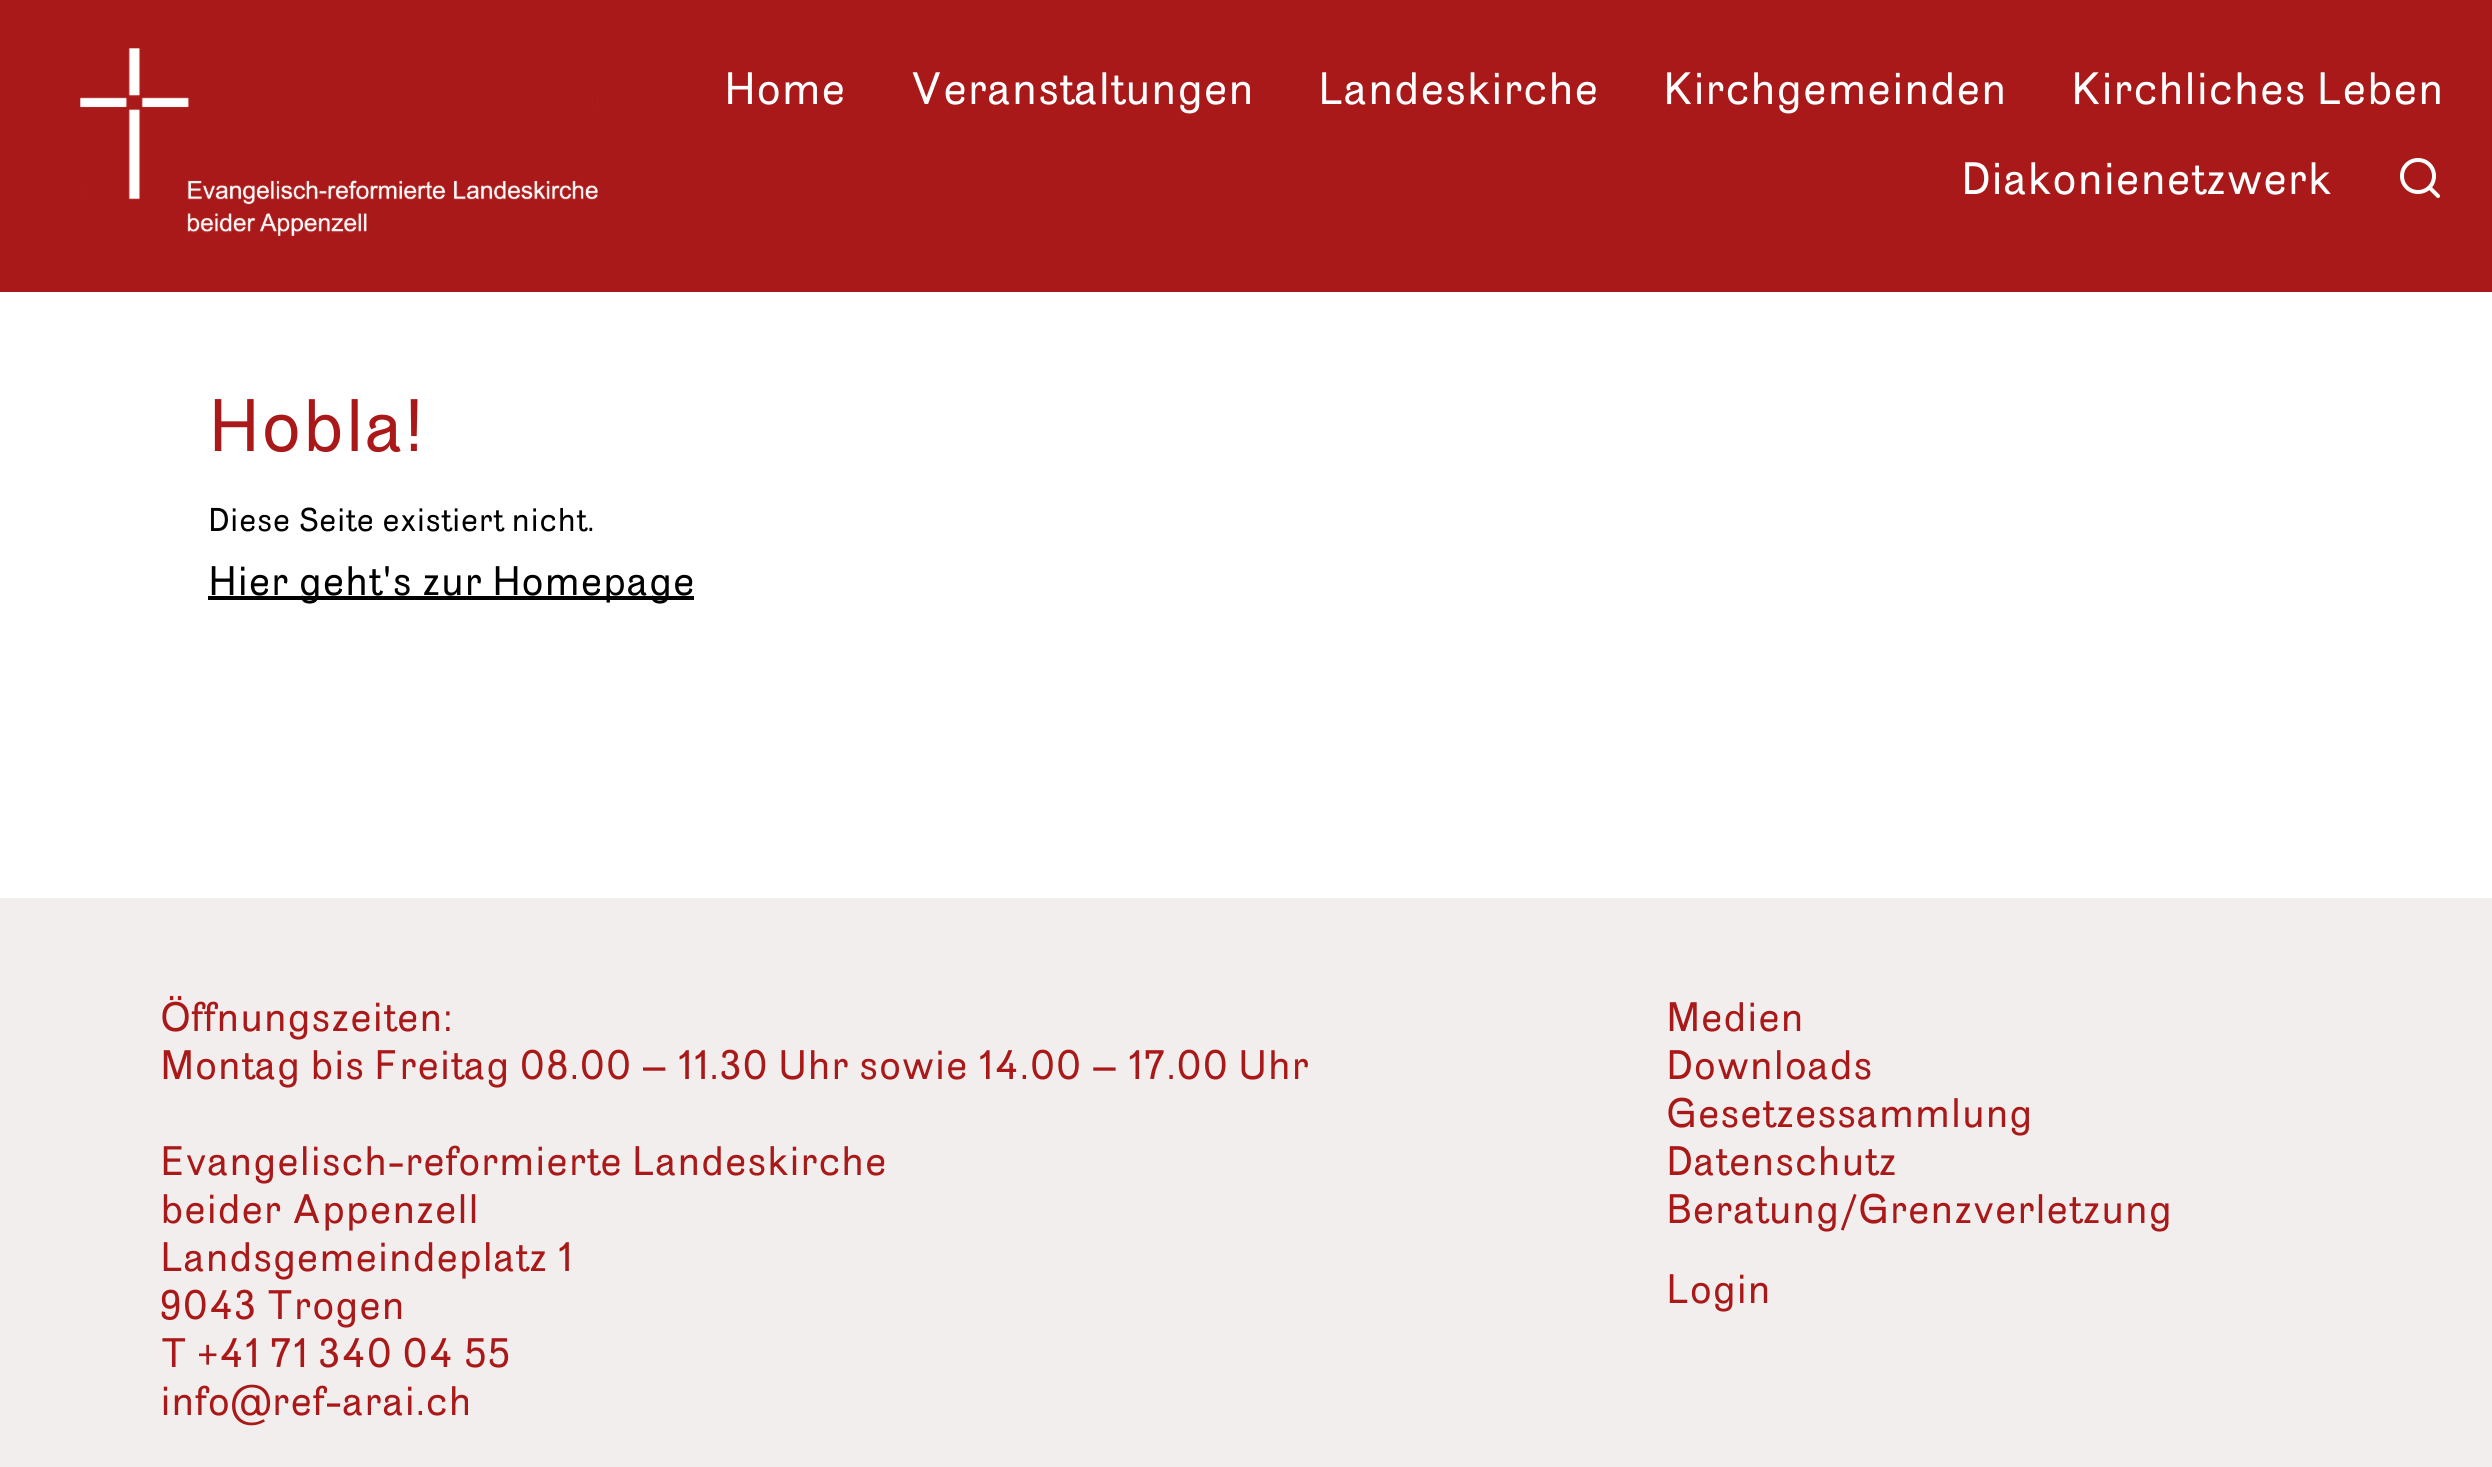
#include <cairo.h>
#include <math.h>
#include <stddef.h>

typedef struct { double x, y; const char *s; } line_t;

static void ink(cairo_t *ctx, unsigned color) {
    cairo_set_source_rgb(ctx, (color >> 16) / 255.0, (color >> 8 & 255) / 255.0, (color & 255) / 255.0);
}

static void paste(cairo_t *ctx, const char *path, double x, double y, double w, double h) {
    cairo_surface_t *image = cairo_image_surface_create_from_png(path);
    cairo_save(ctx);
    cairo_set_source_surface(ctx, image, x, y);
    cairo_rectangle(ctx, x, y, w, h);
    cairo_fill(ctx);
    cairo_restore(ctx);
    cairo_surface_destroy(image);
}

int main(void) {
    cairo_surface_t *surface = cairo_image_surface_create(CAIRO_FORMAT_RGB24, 2492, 1467);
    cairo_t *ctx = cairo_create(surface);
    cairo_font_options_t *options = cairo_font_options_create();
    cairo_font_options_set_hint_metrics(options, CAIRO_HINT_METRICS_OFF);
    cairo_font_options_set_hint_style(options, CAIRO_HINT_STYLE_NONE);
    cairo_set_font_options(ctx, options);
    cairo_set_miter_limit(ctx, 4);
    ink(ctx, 0xFFFFFF);
    cairo_paint(ctx);
    ink(ctx, 0xAA1919);
    cairo_rectangle(ctx, 0, 0, 2492, 292);
    cairo_fill(ctx);
    paste(ctx, "media/1.png", 80, 48, 518, 188);
    cairo_select_font_face(ctx, "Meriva", CAIRO_FONT_SLANT_NORMAL, CAIRO_FONT_WEIGHT_NORMAL);
    cairo_set_font_size(ctx, 44);
    ink(ctx, 0xFFFFFF);
    {
        static const line_t items[] = {
            {724, 104, "Home"},
            {910, 104, "Veranstaltungen"},
            {1318, 104, "Landeskirche"},
            {1663, 104, "Kirchgemeinden"},
            {2071, 104, "Kirchliches Leben"},
            {1961, 194, "Diakonienetzwerk"},
        };
        for (size_t i = 0; i < sizeof items / sizeof *items; i++) {
            cairo_move_to(ctx, items[i].x, items[i].y);
            cairo_show_text(ctx, items[i].s);
        }
    }
    cairo_new_path(ctx);
    cairo_move_to(ctx, 2418, 192);
    cairo_curve_to(ctx, 2427, 192, 2434, 185, 2434, 176);
    cairo_curve_to(ctx, 2434, 167, 2427, 160, 2418, 160);
    cairo_curve_to(ctx, 2409, 160, 2402, 167, 2402, 176);
    cairo_curve_to(ctx, 2402, 185, 2409, 192, 2418, 192);
    cairo_close_path(ctx);
    cairo_move_to(ctx, 2438, 196);
    cairo_line_to(ctx, 2429.5, 187.5);
    cairo_set_line_width(ctx, 4);
    cairo_set_line_cap(ctx, CAIRO_LINE_CAP_ROUND);
    cairo_set_line_join(ctx, CAIRO_LINE_JOIN_ROUND);
    cairo_stroke(ctx);
    cairo_set_font_size(ctx, 72);
    ink(ctx, 0xAA1919);
    cairo_move_to(ctx, 208, 451);
    cairo_show_text(ctx, "Hobla!");
    cairo_set_font_size(ctx, 32);
    ink(ctx, 0x000000);
    cairo_move_to(ctx, 208, 531);
    cairo_show_text(ctx, "Diese Seite existiert nicht.");
    cairo_rectangle(ctx, 208, 596, 486, 4);
    cairo_fill(ctx);
    cairo_set_font_size(ctx, 40);
    cairo_move_to(ctx, 208, 595);
    cairo_show_text(ctx, "Hier geht's zur Homepage");
    ink(ctx, 0xF2EEEE);
    cairo_rectangle(ctx, 0, 898, 2492, 569);
    cairo_fill(ctx);
    ink(ctx, 0xAA1919);
    {
        static const line_t items[] = {
            {160, 1031, "Öffnungszeiten:"},
            {160, 1079, "Montag bis Freitag 08.00 – 11.30 Uhr sowie 14.00 – 17.00 Uhr"},
            {160, 1175, "Evangelisch-reformierte Landeskirche"},
            {160, 1223, "beider Appenzell"},
            {160, 1271, "Landsgemeindeplatz 1"},
            {160, 1319, "9043 Trogen"},
            {160, 1367, "T +41 71 340 04 55"},
            {160, 1415, "info@ref-arai.ch"},
            {1666, 1031, "Medien"},
            {1666, 1079, "Downloads"},
            {1666, 1127, "Gesetzessammlung"},
            {1666, 1175, "Datenschutz"},
            {1666, 1223, "Beratung/Grenzverletzung"},
            {1666, 1303, "Login"},
        };
        for (size_t i = 0; i < sizeof items / sizeof *items; i++) {
            cairo_move_to(ctx, items[i].x, items[i].y);
            cairo_show_text(ctx, items[i].s);
        }
    }
    cairo_surface_write_to_png(surface, "image.png");
    cairo_font_options_destroy(options);
    cairo_destroy(ctx);
    cairo_surface_destroy(surface);
    return 0;
}
